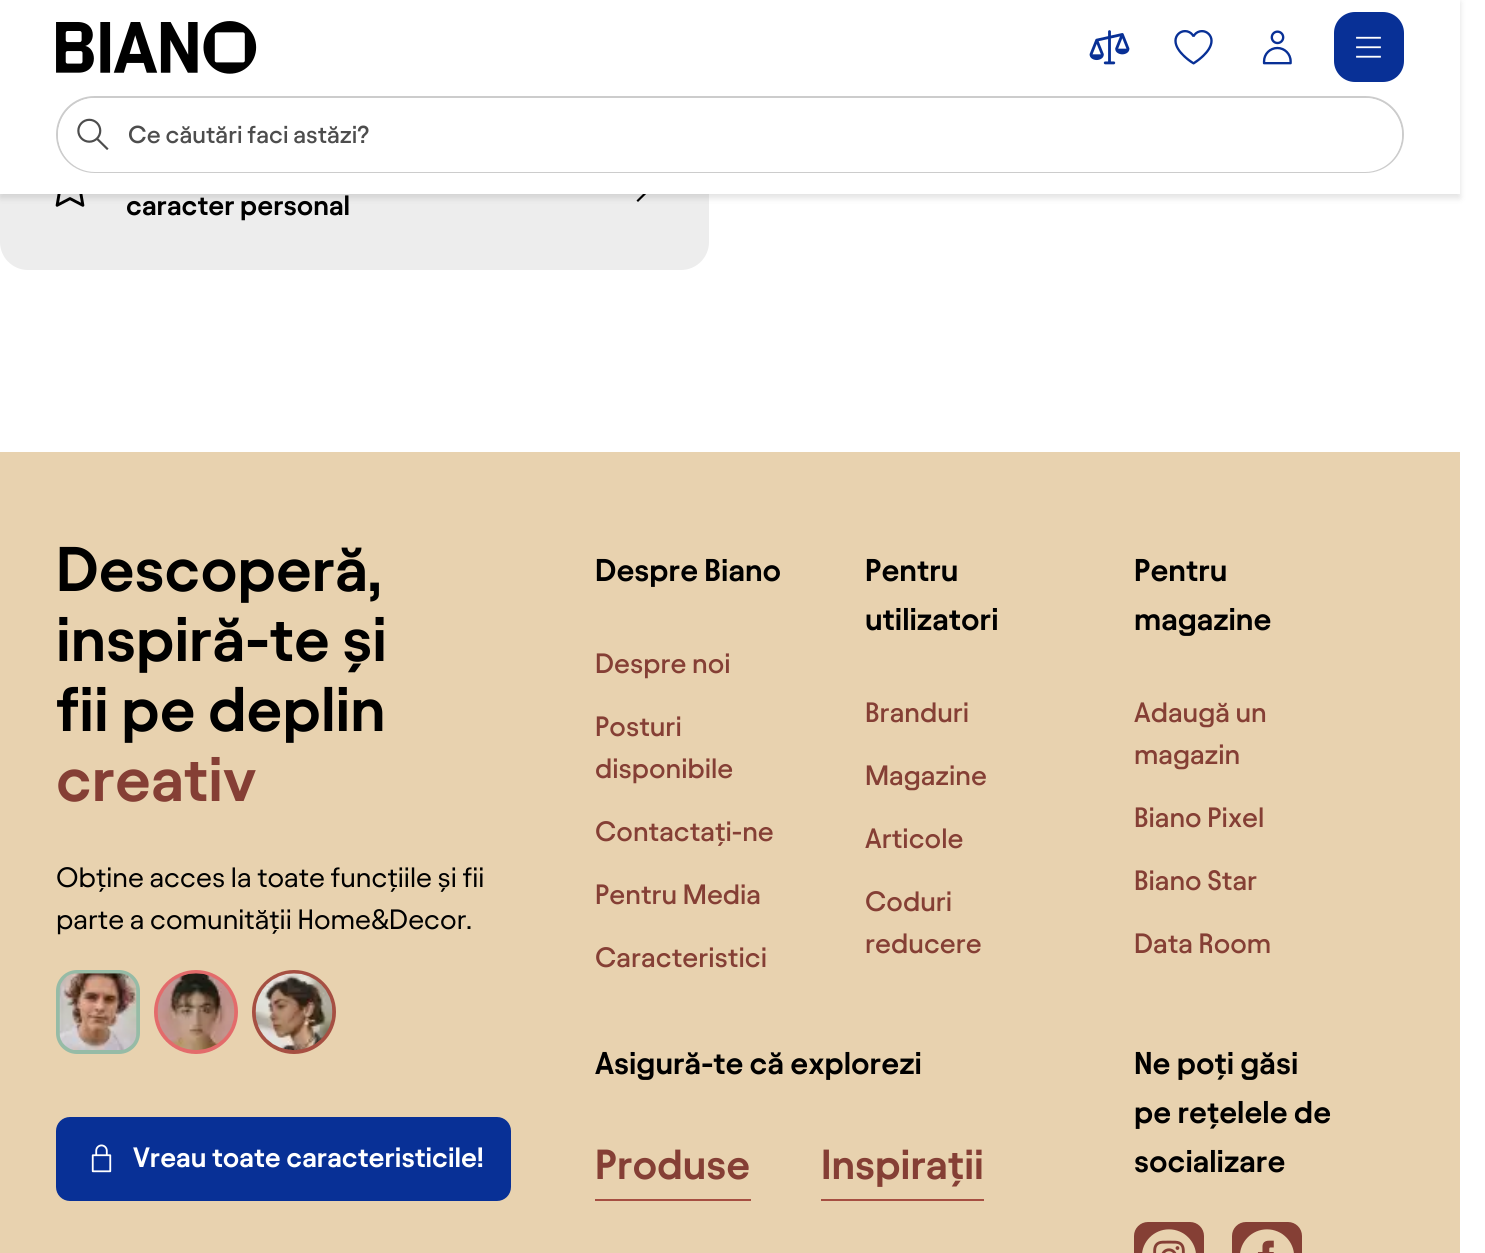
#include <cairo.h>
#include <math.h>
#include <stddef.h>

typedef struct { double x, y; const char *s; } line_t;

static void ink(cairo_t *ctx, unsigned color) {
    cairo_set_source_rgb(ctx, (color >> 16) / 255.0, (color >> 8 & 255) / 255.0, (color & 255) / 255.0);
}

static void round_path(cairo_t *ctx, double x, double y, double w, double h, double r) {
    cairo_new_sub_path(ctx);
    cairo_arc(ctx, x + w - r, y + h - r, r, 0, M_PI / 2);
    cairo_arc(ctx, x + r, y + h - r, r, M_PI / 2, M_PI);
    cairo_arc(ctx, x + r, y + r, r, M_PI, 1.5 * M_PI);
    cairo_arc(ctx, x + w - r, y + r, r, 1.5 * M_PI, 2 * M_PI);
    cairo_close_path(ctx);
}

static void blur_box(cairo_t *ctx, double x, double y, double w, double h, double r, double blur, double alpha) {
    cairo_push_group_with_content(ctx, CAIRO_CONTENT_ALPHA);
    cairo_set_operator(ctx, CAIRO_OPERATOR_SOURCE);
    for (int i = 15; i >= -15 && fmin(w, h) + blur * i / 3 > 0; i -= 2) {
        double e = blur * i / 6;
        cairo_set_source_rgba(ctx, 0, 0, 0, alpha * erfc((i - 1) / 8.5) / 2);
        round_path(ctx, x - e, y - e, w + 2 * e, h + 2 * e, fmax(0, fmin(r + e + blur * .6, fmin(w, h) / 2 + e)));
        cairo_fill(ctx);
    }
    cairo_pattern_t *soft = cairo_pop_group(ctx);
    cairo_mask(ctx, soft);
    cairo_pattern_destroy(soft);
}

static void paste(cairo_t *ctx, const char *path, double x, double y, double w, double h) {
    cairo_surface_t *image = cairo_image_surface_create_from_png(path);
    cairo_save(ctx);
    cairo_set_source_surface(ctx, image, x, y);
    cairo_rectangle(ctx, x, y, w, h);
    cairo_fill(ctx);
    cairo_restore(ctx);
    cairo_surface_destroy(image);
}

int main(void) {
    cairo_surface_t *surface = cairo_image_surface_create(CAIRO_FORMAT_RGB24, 1485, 1253);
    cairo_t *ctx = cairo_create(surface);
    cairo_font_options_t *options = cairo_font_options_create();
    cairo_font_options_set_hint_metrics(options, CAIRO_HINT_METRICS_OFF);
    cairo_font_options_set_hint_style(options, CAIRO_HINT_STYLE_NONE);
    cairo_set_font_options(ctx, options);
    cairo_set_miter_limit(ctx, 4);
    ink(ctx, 0xFFFFFF);
    cairo_paint(ctx);
    ink(ctx, 0xEDEDED);
    round_path(ctx, 0, 102, 709, 168, 28);
    cairo_fill(ctx);
    paste(ctx, "media/7.png", 55, 194, 30, 13);
    ink(ctx, 0x000000);
    cairo_new_path(ctx);
    cairo_move_to(ctx, 654, 185.5);
    cairo_curve_to(ctx, 654, 186.5, 640, 200, 638, 202);
    cairo_line_to(ctx, 636.5, 200.5);
    cairo_line_to(ctx, 651.5, 185.5);
    cairo_line_to(ctx, 636.5, 170.5);
    cairo_line_to(ctx, 638, 169);
    cairo_curve_to(ctx, 640, 171, 654, 184.5, 654, 185.5);
    cairo_close_path(ctx);
    cairo_fill(ctx);
    ink(ctx, 0x000000);
    blur_box(ctx, 0, 2, 1460, 196, 0, 3.5, 0.12);
    ink(ctx, 0xFFFFFF);
    cairo_rectangle(ctx, 0, 0, 1460, 194);
    cairo_fill(ctx);
    paste(ctx, "media/1.png", 56, 21, 201, 53);
    paste(ctx, "media/2.png", 1089, 30, 41, 35);
    paste(ctx, "media/3.png", 1174, 30, 39, 35);
    paste(ctx, "media/4.png", 1262, 30, 30, 35);
    ink(ctx, 0x083096);
    round_path(ctx, 1334, 12, 70, 70, 21);
    cairo_fill(ctx);
    paste(ctx, "media/5.png", 1356, 36, 25, 22);
    round_path(ctx, 57, 97, 1346, 75, 37.5);
    ink(ctx, 0xCCCCCC);
    cairo_stroke(ctx);
    ink(ctx, 0xFFFFFF);
    round_path(ctx, 58, 98, 1344, 74, 37);
    cairo_fill(ctx);
    paste(ctx, "media/6.png", 77, 118, 32, 32);
    cairo_select_font_face(ctx, "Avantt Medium", CAIRO_FONT_SLANT_NORMAL, CAIRO_FONT_WEIGHT_NORMAL);
    cairo_set_font_size(ctx, 24.5);
    ink(ctx, 0x4D4D4D);
    cairo_move_to(ctx, 128, 143);
    cairo_show_text(ctx, "Ce căutări faci astăzi?");
    cairo_select_font_face(ctx, "Avantt SemiBold", CAIRO_FONT_SLANT_NORMAL, CAIRO_FONT_WEIGHT_NORMAL);
    cairo_set_font_size(ctx, 28);
    ink(ctx, 0x000000);
    cairo_move_to(ctx, 126, 215);
    cairo_show_text(ctx, "caracter personal");
    ink(ctx, 0xE8D2AF);
    cairo_rectangle(ctx, 0, 452, 1460, 801);
    cairo_fill(ctx);
    cairo_set_font_size(ctx, 63);
    ink(ctx, 0x000000);
    {
        static const line_t items[] = {
            {56, 591, "Descoperă,"},
            {56, 661, "inspiră-te și"},
            {56, 731, "fii pe deplin"},
        };
        for (size_t i = 0; i < sizeof items / sizeof *items; i++) {
            cairo_move_to(ctx, items[i].x, items[i].y);
            cairo_show_text(ctx, items[i].s);
        }
    }
    ink(ctx, 0x853F35);
    cairo_move_to(ctx, 56, 801);
    cairo_show_text(ctx, "creativ");
    cairo_select_font_face(ctx, "Avantt", CAIRO_FONT_SLANT_NORMAL, CAIRO_FONT_WEIGHT_NORMAL);
    cairo_set_font_size(ctx, 28);
    ink(ctx, 0x000000);
    cairo_move_to(ctx, 56, 887);
    cairo_show_text(ctx, "Obține acces la toate funcțiile și fii");
    cairo_move_to(ctx, 56, 929);
    cairo_show_text(ctx, "parte a comunității Home&Decor.");
    ink(ctx, 0x96BBA6);
    round_path(ctx, 56, 970, 84, 84, 21);
    cairo_fill(ctx);
    paste(ctx, "media/8.png", 59, 973, 78, 77);
    ink(ctx, 0xE36B6B);
    cairo_arc(ctx, 196, 1012, 42, 0, 2 * M_PI);
    cairo_fill(ctx);
    paste(ctx, "media/9.png", 157, 973, 78, 77);
    ink(ctx, 0xA64F42);
    cairo_arc(ctx, 294, 1012, 42, 0, 2 * M_PI);
    cairo_fill(ctx);
    paste(ctx, "media/10.png", 255, 973, 78, 78);
    ink(ctx, 0x083096);
    round_path(ctx, 56, 1117, 455, 84, 14);
    cairo_fill(ctx);
    paste(ctx, "media/11.png", 91, 1144, 21, 29);
    cairo_select_font_face(ctx, "Avantt SemiBold", CAIRO_FONT_SLANT_NORMAL, CAIRO_FONT_WEIGHT_NORMAL);
    ink(ctx, 0xFFFFFF);
    cairo_move_to(ctx, 133, 1167);
    cairo_show_text(ctx, "Vreau toate caracteristicile!");
    cairo_set_font_size(ctx, 31.5);
    ink(ctx, 0x000000);
    cairo_move_to(ctx, 595, 581);
    cairo_show_text(ctx, "Despre Biano");
    cairo_select_font_face(ctx, "Avantt Medium", CAIRO_FONT_SLANT_NORMAL, CAIRO_FONT_WEIGHT_NORMAL);
    cairo_set_font_size(ctx, 28);
    ink(ctx, 0x853F35);
    {
        static const line_t items[] = {
            {595, 673, "Despre noi"},
            {595, 736, "Posturi"},
            {595, 778, "disponibile"},
            {595, 841, "Contactați-ne"},
            {595, 904, "Pentru Media"},
            {595, 967, "Caracteristici"},
        };
        for (size_t i = 0; i < sizeof items / sizeof *items; i++) {
            cairo_move_to(ctx, items[i].x, items[i].y);
            cairo_show_text(ctx, items[i].s);
        }
    }
    cairo_select_font_face(ctx, "Avantt SemiBold", CAIRO_FONT_SLANT_NORMAL, CAIRO_FONT_WEIGHT_NORMAL);
    cairo_set_font_size(ctx, 31.5);
    ink(ctx, 0x000000);
    cairo_move_to(ctx, 865, 581);
    cairo_show_text(ctx, "Pentru");
    cairo_move_to(ctx, 865, 630);
    cairo_show_text(ctx, "utilizatori");
    cairo_select_font_face(ctx, "Avantt Medium", CAIRO_FONT_SLANT_NORMAL, CAIRO_FONT_WEIGHT_NORMAL);
    cairo_set_font_size(ctx, 28);
    ink(ctx, 0x853F35);
    {
        static const line_t items[] = {
            {865, 722, "Branduri"},
            {865, 785, "Magazine"},
            {865, 848, "Articole"},
            {865, 911, "Coduri"},
            {865, 953, "reducere"},
        };
        for (size_t i = 0; i < sizeof items / sizeof *items; i++) {
            cairo_move_to(ctx, items[i].x, items[i].y);
            cairo_show_text(ctx, items[i].s);
        }
    }
    cairo_select_font_face(ctx, "Avantt SemiBold", CAIRO_FONT_SLANT_NORMAL, CAIRO_FONT_WEIGHT_NORMAL);
    cairo_set_font_size(ctx, 31.5);
    ink(ctx, 0x000000);
    cairo_move_to(ctx, 1134, 581);
    cairo_show_text(ctx, "Pentru");
    cairo_move_to(ctx, 1134, 630);
    cairo_show_text(ctx, "magazine");
    cairo_select_font_face(ctx, "Avantt Medium", CAIRO_FONT_SLANT_NORMAL, CAIRO_FONT_WEIGHT_NORMAL);
    cairo_set_font_size(ctx, 28);
    ink(ctx, 0x853F35);
    {
        static const line_t items[] = {
            {1134, 722, "Adaugă un"},
            {1134, 764, "magazin"},
            {1134, 827, "Biano Pixel"},
            {1134, 890, "Biano Star"},
            {1134, 953, "Data Room"},
        };
        for (size_t i = 0; i < sizeof items / sizeof *items; i++) {
            cairo_move_to(ctx, items[i].x, items[i].y);
            cairo_show_text(ctx, items[i].s);
        }
    }
    cairo_select_font_face(ctx, "Avantt SemiBold", CAIRO_FONT_SLANT_NORMAL, CAIRO_FONT_WEIGHT_NORMAL);
    cairo_set_font_size(ctx, 31.5);
    ink(ctx, 0x000000);
    cairo_move_to(ctx, 595, 1074);
    cairo_show_text(ctx, "Asigură-te că explorezi");
    cairo_set_font_size(ctx, 42);
    ink(ctx, 0x853F35);
    cairo_move_to(ctx, 595, 1179);
    cairo_show_text(ctx, "Produse");
    ink(ctx, 0xA64F42);
    cairo_rectangle(ctx, 595, 1199, 156, 2);
    cairo_fill(ctx);
    ink(ctx, 0x853F35);
    cairo_move_to(ctx, 821, 1179);
    cairo_show_text(ctx, "Inspirații");
    ink(ctx, 0xA64F42);
    cairo_rectangle(ctx, 821, 1199, 163, 2);
    cairo_fill(ctx);
    cairo_set_font_size(ctx, 31.5);
    ink(ctx, 0x000000);
    {
        static const line_t items[] = {
            {1134, 1074, "Ne poți găsi"},
            {1134, 1123, "pe rețelele de"},
            {1134, 1172, "socializare"},
        };
        for (size_t i = 0; i < sizeof items / sizeof *items; i++) {
            cairo_move_to(ctx, items[i].x, items[i].y);
            cairo_show_text(ctx, items[i].s);
        }
    }
    ink(ctx, 0x853F35);
    round_path(ctx, 1134, 1222, 70, 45, 14);
    cairo_fill(ctx);
    paste(ctx, "media/12.png", 1142, 1229, 54, 24);
    round_path(ctx, 1232, 1222, 70, 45, 14);
    cairo_fill(ctx);
    paste(ctx, "media/13.png", 1240, 1229, 54, 24);
    cairo_surface_write_to_png(surface, "image.png");
    cairo_font_options_destroy(options);
    cairo_destroy(ctx);
    cairo_surface_destroy(surface);
    return 0;
}
